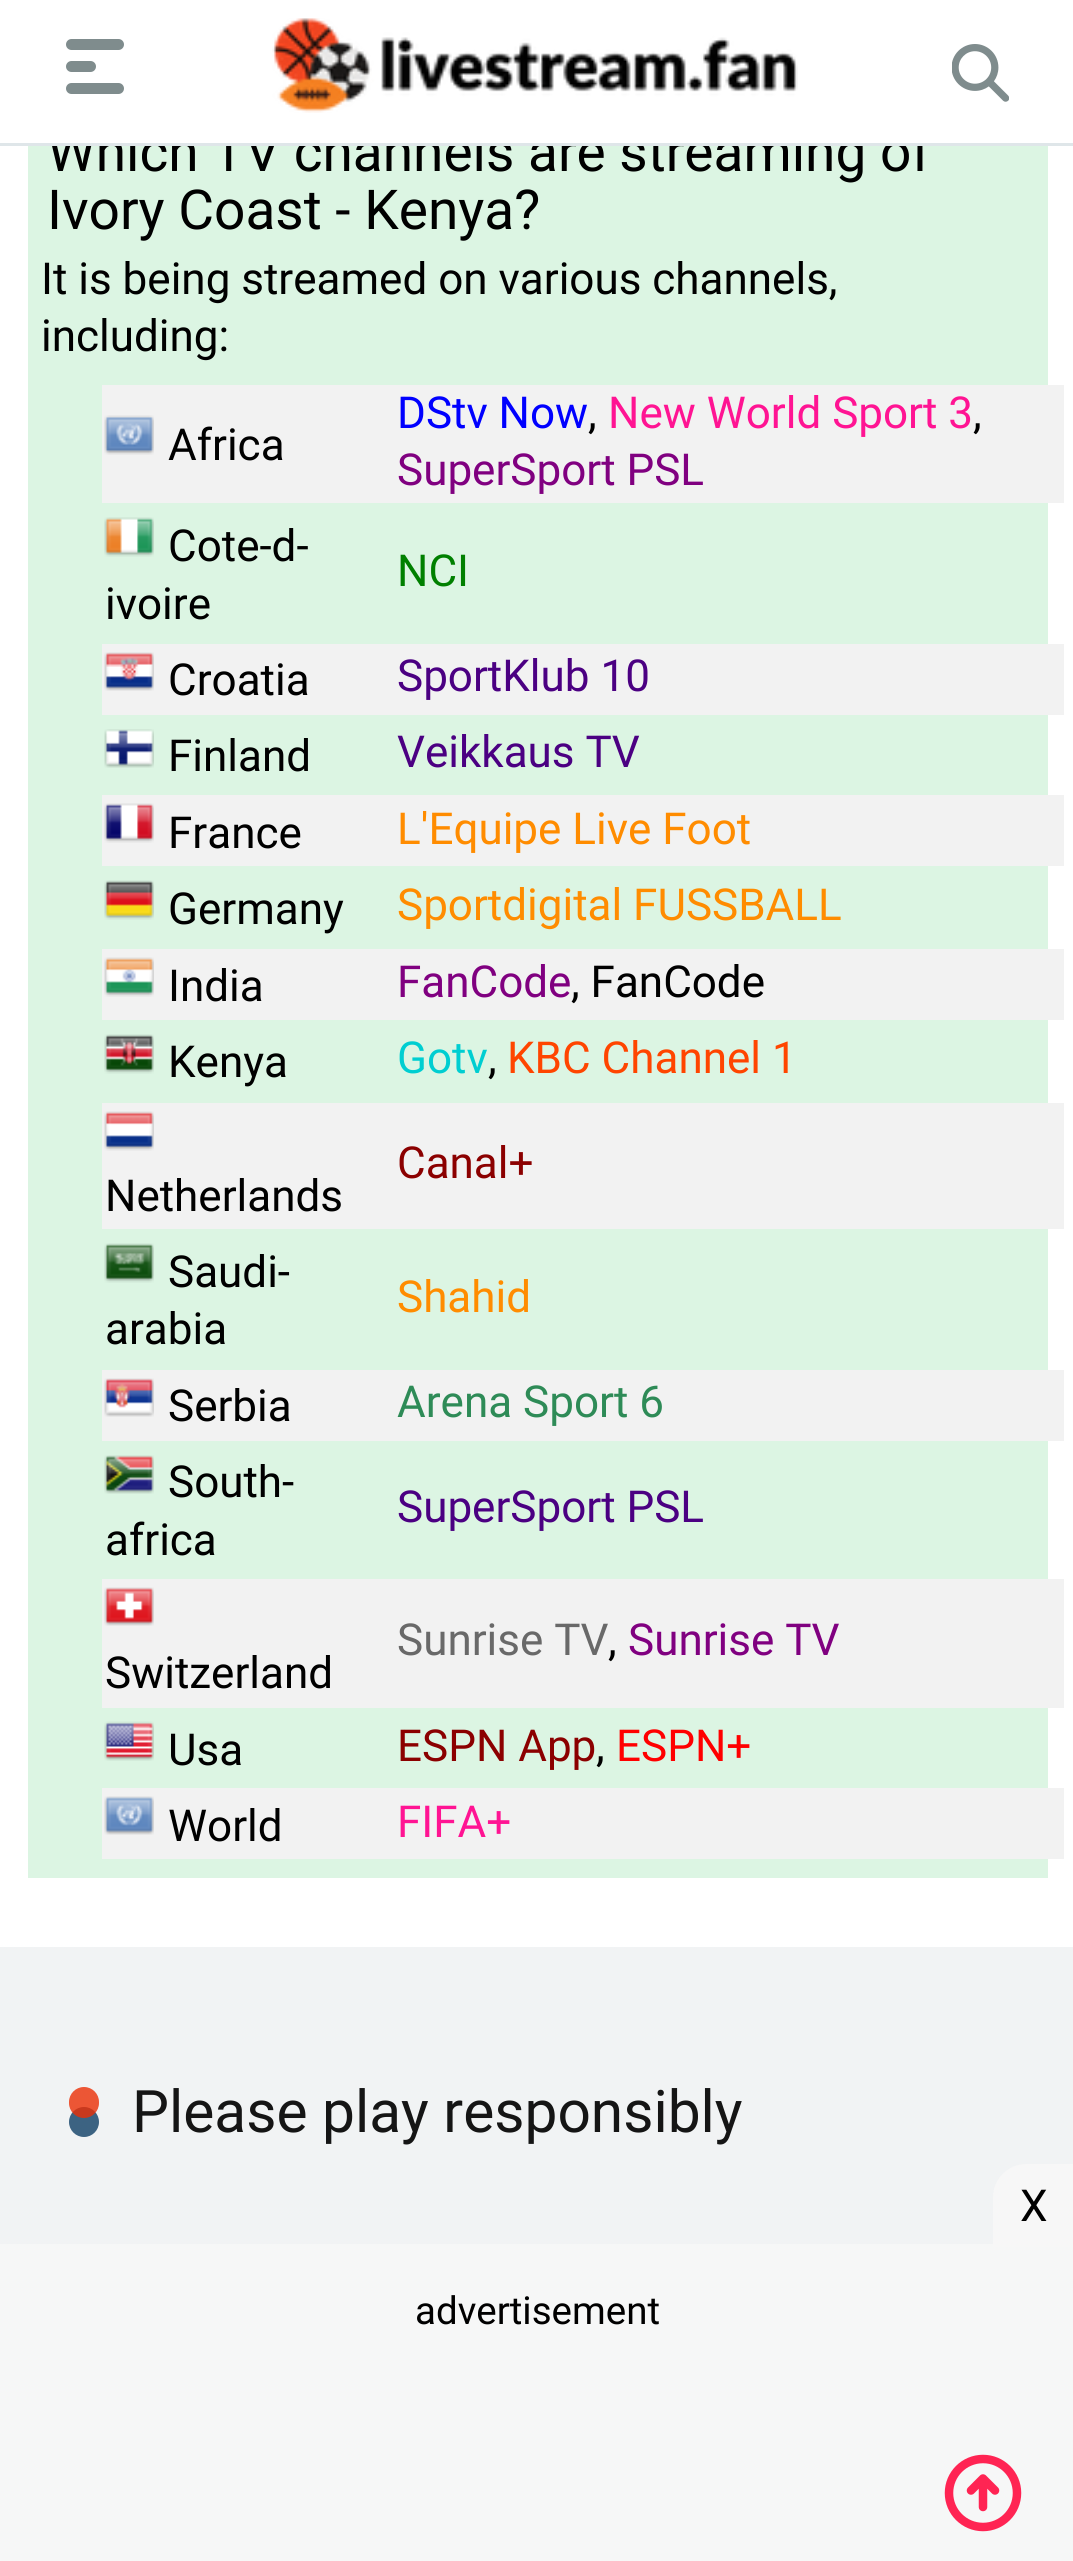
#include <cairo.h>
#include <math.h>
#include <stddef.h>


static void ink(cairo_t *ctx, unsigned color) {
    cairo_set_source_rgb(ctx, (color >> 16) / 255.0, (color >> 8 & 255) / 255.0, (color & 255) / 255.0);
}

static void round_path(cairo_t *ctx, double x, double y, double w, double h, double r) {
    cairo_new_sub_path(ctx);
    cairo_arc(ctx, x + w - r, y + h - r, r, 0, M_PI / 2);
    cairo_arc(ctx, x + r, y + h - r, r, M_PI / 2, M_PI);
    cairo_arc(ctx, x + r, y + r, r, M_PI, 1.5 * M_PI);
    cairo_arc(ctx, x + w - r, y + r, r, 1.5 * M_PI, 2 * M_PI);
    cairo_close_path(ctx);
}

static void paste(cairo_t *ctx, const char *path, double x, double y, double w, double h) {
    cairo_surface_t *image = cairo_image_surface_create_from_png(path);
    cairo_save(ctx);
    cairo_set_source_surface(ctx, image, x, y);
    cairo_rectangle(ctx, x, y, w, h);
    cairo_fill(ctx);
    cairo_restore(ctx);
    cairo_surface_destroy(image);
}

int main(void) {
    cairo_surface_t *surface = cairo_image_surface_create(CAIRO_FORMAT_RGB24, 1073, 2561);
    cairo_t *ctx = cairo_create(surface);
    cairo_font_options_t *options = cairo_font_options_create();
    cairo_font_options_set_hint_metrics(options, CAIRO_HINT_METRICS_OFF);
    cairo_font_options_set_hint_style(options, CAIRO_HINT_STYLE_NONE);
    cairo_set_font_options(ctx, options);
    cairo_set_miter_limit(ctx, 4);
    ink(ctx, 0xFFFFFF);
    cairo_paint(ctx);
    ink(ctx, 0xDCF5E3);
    cairo_rectangle(ctx, 28, 146, 1020, 1732);
    cairo_fill(ctx);
    cairo_select_font_face(ctx, "Roboto", CAIRO_FONT_SLANT_NORMAL, CAIRO_FONT_WEIGHT_NORMAL);
    cairo_set_font_size(ctx, 55);
    ink(ctx, 0x000000);
    cairo_move_to(ctx, 47, 171);
    cairo_show_text(ctx, "Which TV channels are streaming of");
    ink(ctx, 0xFFFFFF);
    cairo_rectangle(ctx, 48, 129, 883, 14);
    cairo_fill(ctx);
    ink(ctx, 0xDFE6E9);
    cairo_rectangle(ctx, 0, 143, 1073, 3);
    cairo_fill(ctx);
    ink(ctx, 0x7F8C8D);
    round_path(ctx, 66, 39, 58, 11, 5.5);
    cairo_fill(ctx);
    round_path(ctx, 66, 61, 30, 11, 5.5);
    cairo_fill(ctx);
    round_path(ctx, 66, 83, 58, 11, 5.5);
    cairo_fill(ctx);
    paste(ctx, "media/1.png", 272, 18, 526, 95);
    paste(ctx, "media/2.png", 952, 44, 57, 58);
    ink(ctx, 0x000000);
    cairo_move_to(ctx, 47, 229);
    cairo_show_text(ctx, "Ivory Coast - Kenya?");
    cairo_set_font_size(ctx, 44);
    cairo_move_to(ctx, 41, 294);
    cairo_show_text(ctx, "It is being streamed on various channels,");
    cairo_move_to(ctx, 41, 351);
    cairo_show_text(ctx, "including:");
    ink(ctx, 0xF2F2F2);
    cairo_rectangle(ctx, 102, 385, 962, 118);
    cairo_fill(ctx);
    paste(ctx, "media/3.png", 104, 415, 50, 40);
    ink(ctx, 0x000000);
    cairo_move_to(ctx, 168, 460);
    cairo_show_text(ctx, "Africa");
    ink(ctx, 0x0000FF);
    cairo_move_to(ctx, 397, 428);
    cairo_show_text(ctx, "DStv Now");
    ink(ctx, 0x000000);
    cairo_move_to(ctx, 588, 428);
    cairo_show_text(ctx, ",");
    ink(ctx, 0xFF1493);
    cairo_move_to(ctx, 608, 428);
    cairo_show_text(ctx, "New World Sport 3");
    ink(ctx, 0x000000);
    cairo_move_to(ctx, 973, 428);
    cairo_show_text(ctx, ",");
    ink(ctx, 0x800080);
    cairo_move_to(ctx, 397, 485);
    cairo_show_text(ctx, "SuperSport PSL");
    paste(ctx, "media/4.png", 104, 517, 50, 40);
    ink(ctx, 0x000000);
    cairo_move_to(ctx, 168, 561);
    cairo_show_text(ctx, "Cote-d-");
    cairo_move_to(ctx, 105, 619);
    cairo_show_text(ctx, "ivoire");
    ink(ctx, 0x008000);
    cairo_move_to(ctx, 397, 586);
    cairo_show_text(ctx, "NCI");
    ink(ctx, 0xF2F2F2);
    cairo_rectangle(ctx, 102, 644, 962, 71);
    cairo_fill(ctx);
    paste(ctx, "media/5.png", 104, 652, 50, 39);
    ink(ctx, 0x000000);
    cairo_move_to(ctx, 168, 695);
    cairo_show_text(ctx, "Croatia");
    ink(ctx, 0x4B0082);
    cairo_move_to(ctx, 397, 691);
    cairo_show_text(ctx, "SportKlub 10");
    paste(ctx, "media/6.png", 104, 729, 50, 39);
    ink(ctx, 0x000000);
    cairo_move_to(ctx, 168, 771);
    cairo_show_text(ctx, "Finland");
    ink(ctx, 0x4B0082);
    cairo_move_to(ctx, 397, 767);
    cairo_show_text(ctx, "Veikkaus TV");
    ink(ctx, 0xF2F2F2);
    cairo_rectangle(ctx, 102, 795, 962, 71);
    cairo_fill(ctx);
    paste(ctx, "media/7.png", 104, 803, 50, 40);
    ink(ctx, 0x000000);
    cairo_move_to(ctx, 168, 848);
    cairo_show_text(ctx, "France");
    ink(ctx, 0xFF8C00);
    cairo_move_to(ctx, 397, 844);
    cairo_show_text(ctx, "L'Equipe Live Foot");
    paste(ctx, "media/8.png", 104, 880, 50, 40);
    ink(ctx, 0x000000);
    cairo_move_to(ctx, 168, 924);
    cairo_show_text(ctx, "Germany");
    ink(ctx, 0xFF8C00);
    cairo_move_to(ctx, 397, 920);
    cairo_show_text(ctx, "Sportdigital FUSSBALL");
    ink(ctx, 0xF2F2F2);
    cairo_rectangle(ctx, 102, 949, 962, 71);
    cairo_fill(ctx);
    paste(ctx, "media/9.png", 104, 957, 50, 40);
    ink(ctx, 0x000000);
    cairo_move_to(ctx, 168, 1001);
    cairo_show_text(ctx, "India");
    ink(ctx, 0x800080);
    cairo_move_to(ctx, 397, 997);
    cairo_show_text(ctx, "FanCode");
    ink(ctx, 0x000000);
    cairo_move_to(ctx, 571, 997);
    cairo_show_text(ctx, ", FanCode");
    paste(ctx, "media/10.png", 104, 1034, 50, 40);
    cairo_move_to(ctx, 168, 1077);
    cairo_show_text(ctx, "Kenya");
    ink(ctx, 0x00CED1);
    cairo_move_to(ctx, 397, 1073);
    cairo_show_text(ctx, "Gotv");
    ink(ctx, 0x000000);
    cairo_move_to(ctx, 488, 1073);
    cairo_show_text(ctx, ",");
    ink(ctx, 0xFF4500);
    cairo_move_to(ctx, 507, 1073);
    cairo_show_text(ctx, "KBC Channel 1");
    ink(ctx, 0xF2F2F2);
    cairo_rectangle(ctx, 102, 1103, 962, 126);
    cairo_fill(ctx);
    ink(ctx, 0x8B0000);
    cairo_move_to(ctx, 397, 1178);
    cairo_show_text(ctx, "Canal+");
    paste(ctx, "media/11.png", 104, 1111, 50, 40);
    ink(ctx, 0x000000);
    cairo_move_to(ctx, 105, 1211);
    cairo_show_text(ctx, "Netherlands");
    paste(ctx, "media/12.png", 104, 1243, 50, 40);
    cairo_move_to(ctx, 168, 1287);
    cairo_show_text(ctx, "Saudi-");
    cairo_move_to(ctx, 105, 1344);
    cairo_show_text(ctx, "arabia");
    ink(ctx, 0xFF8C00);
    cairo_move_to(ctx, 397, 1312);
    cairo_show_text(ctx, "Shahid");
    ink(ctx, 0xF2F2F2);
    cairo_rectangle(ctx, 102, 1370, 962, 71);
    cairo_fill(ctx);
    paste(ctx, "media/13.png", 104, 1378, 50, 39);
    ink(ctx, 0x000000);
    cairo_move_to(ctx, 168, 1421);
    cairo_show_text(ctx, "Serbia");
    ink(ctx, 0x2E8B57);
    cairo_move_to(ctx, 397, 1417);
    cairo_show_text(ctx, "Arena Sport 6");
    paste(ctx, "media/14.png", 104, 1455, 50, 39);
    ink(ctx, 0x000000);
    cairo_move_to(ctx, 168, 1497);
    cairo_show_text(ctx, "South-");
    cairo_move_to(ctx, 105, 1555);
    cairo_show_text(ctx, "africa");
    ink(ctx, 0x4B0082);
    cairo_move_to(ctx, 397, 1522);
    cairo_show_text(ctx, "SuperSport PSL");
    ink(ctx, 0xF2F2F2);
    cairo_rectangle(ctx, 102, 1579, 962, 129);
    cairo_fill(ctx);
    ink(ctx, 0x696969);
    cairo_move_to(ctx, 397, 1655);
    cairo_show_text(ctx, "Sunrise TV");
    ink(ctx, 0x000000);
    cairo_move_to(ctx, 608, 1655);
    cairo_show_text(ctx, ",");
    ink(ctx, 0x800080);
    cairo_move_to(ctx, 628, 1655);
    cairo_show_text(ctx, "Sunrise TV");
    paste(ctx, "media/15.png", 104, 1587, 50, 39);
    ink(ctx, 0x000000);
    cairo_move_to(ctx, 105, 1688);
    cairo_show_text(ctx, "Switzerland");
    paste(ctx, "media/16.png", 104, 1721, 50, 40);
    cairo_move_to(ctx, 168, 1765);
    cairo_show_text(ctx, "Usa");
    ink(ctx, 0x8B0000);
    cairo_move_to(ctx, 397, 1761);
    cairo_show_text(ctx, "ESPN App");
    ink(ctx, 0x000000);
    cairo_move_to(ctx, 596, 1761);
    cairo_show_text(ctx, ",");
    ink(ctx, 0xFF0000);
    cairo_move_to(ctx, 616, 1761);
    cairo_show_text(ctx, "ESPN+");
    ink(ctx, 0xF2F2F2);
    cairo_rectangle(ctx, 102, 1788, 962, 71);
    cairo_fill(ctx);
    paste(ctx, "media/17.png", 104, 1796, 50, 39);
    ink(ctx, 0x000000);
    cairo_move_to(ctx, 168, 1841);
    cairo_show_text(ctx, "World");
    ink(ctx, 0xFF1493);
    cairo_move_to(ctx, 397, 1837);
    cairo_show_text(ctx, "FIFA+");
    ink(ctx, 0xF1F3F4);
    cairo_rectangle(ctx, 0, 1947, 1073, 297);
    cairo_fill(ctx);
    ink(ctx, 0x3C6382);
    cairo_arc(ctx, 84, 2122, 15, 0, 2 * M_PI);
    cairo_fill(ctx);
    cairo_set_source_rgba(ctx, 0.922, 0.184, 0.024, 0.8);
    round_path(ctx, 69, 2087, 30, 31, 15);
    cairo_fill(ctx);
    cairo_set_font_size(ctx, 58.6);
    ink(ctx, 0x151515);
    cairo_move_to(ctx, 132, 2132);
    cairo_show_text(ctx, "Please play responsibly");
    ink(ctx, 0xF6F7F7);
    cairo_rectangle(ctx, 0, 2244, 1073, 317);
    cairo_fill(ctx);
    cairo_set_source_rgba(ctx, 0.969, 0.969, 0.969, 0.9);
    cairo_new_path(ctx);
    cairo_move_to(ctx, 1026, 2164);
    cairo_line_to(ctx, 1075, 2164);
    cairo_line_to(ctx, 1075, 2247);
    cairo_line_to(ctx, 993, 2247);
    cairo_line_to(ctx, 993, 2197);
    cairo_curve_to(ctx, 993, 2179, 1008, 2164, 1026, 2164);
    cairo_close_path(ctx);
    cairo_fill(ctx);
    cairo_set_font_size(ctx, 44);
    ink(ctx, 0x000000);
    cairo_move_to(ctx, 1020, 2221);
    cairo_show_text(ctx, "X");
    cairo_set_font_size(ctx, 38.5);
    cairo_move_to(ctx, 415, 2324);
    cairo_show_text(ctx, "advertisement");
    cairo_new_path(ctx);
    cairo_arc(ctx, 983, 2493, 34, 0, 2 * M_PI);
    ink(ctx, 0xFF2453);
    cairo_set_line_width(ctx, 8.5);
    cairo_stroke(ctx);
    cairo_new_path(ctx);
    cairo_move_to(ctx, 971, 2490.5);
    cairo_line_to(ctx, 983, 2478.5);
    cairo_line_to(ctx, 995, 2490.5);
    cairo_move_to(ctx, 983, 2507);
    cairo_line_to(ctx, 983, 2478.5);
    cairo_set_line_cap(ctx, CAIRO_LINE_CAP_ROUND);
    cairo_set_line_join(ctx, CAIRO_LINE_JOIN_ROUND);
    cairo_stroke(ctx);
    cairo_surface_write_to_png(surface, "image.png");
    cairo_font_options_destroy(options);
    cairo_destroy(ctx);
    cairo_surface_destroy(surface);
    return 0;
}
